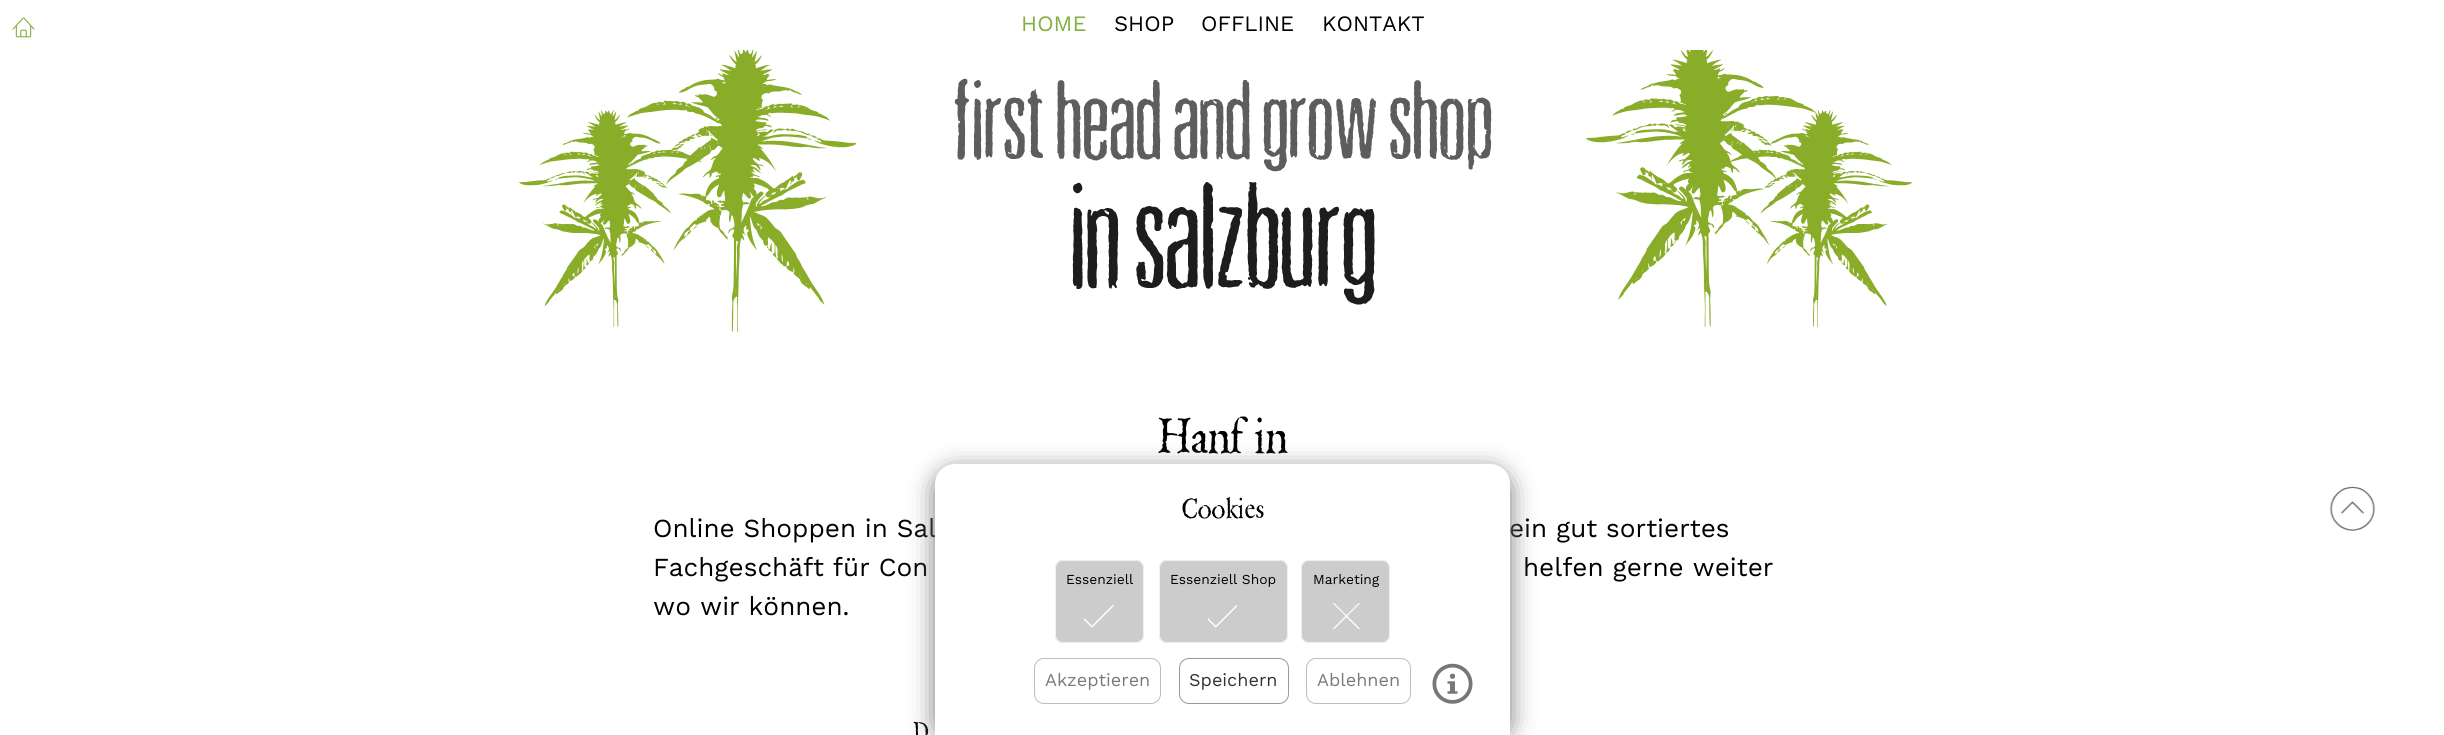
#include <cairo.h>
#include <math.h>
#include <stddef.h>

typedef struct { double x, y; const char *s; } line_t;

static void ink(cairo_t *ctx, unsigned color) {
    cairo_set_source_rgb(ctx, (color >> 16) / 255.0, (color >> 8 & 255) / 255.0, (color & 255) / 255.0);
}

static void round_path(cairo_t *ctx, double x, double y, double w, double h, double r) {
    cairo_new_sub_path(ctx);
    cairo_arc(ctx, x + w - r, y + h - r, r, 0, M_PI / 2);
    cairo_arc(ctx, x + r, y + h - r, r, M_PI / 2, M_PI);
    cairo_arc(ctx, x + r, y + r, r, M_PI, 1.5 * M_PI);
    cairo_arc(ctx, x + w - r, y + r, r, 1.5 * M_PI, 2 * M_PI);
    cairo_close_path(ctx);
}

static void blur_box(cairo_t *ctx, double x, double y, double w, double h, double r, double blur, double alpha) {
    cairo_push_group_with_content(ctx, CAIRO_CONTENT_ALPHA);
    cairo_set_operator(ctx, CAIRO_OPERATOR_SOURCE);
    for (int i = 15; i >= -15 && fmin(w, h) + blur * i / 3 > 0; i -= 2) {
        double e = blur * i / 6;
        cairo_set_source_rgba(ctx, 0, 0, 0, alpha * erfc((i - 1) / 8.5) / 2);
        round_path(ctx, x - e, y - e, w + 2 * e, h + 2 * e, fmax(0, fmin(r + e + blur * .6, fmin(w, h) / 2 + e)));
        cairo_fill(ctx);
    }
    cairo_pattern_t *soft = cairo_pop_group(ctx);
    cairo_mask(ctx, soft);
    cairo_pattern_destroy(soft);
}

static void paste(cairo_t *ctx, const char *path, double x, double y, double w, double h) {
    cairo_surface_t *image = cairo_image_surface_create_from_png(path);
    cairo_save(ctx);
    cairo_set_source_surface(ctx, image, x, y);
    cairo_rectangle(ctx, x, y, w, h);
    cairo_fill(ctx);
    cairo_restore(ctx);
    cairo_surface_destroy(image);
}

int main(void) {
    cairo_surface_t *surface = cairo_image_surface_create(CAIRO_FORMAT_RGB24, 2444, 735);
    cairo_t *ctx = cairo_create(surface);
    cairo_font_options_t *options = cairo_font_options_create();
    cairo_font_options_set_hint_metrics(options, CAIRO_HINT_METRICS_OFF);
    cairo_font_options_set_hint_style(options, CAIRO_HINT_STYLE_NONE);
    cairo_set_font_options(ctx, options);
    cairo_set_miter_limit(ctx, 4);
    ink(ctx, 0xFFFFFF);
    cairo_paint(ctx);
    paste(ctx, "media/1.png", 12, 17, 23, 21);
    cairo_select_font_face(ctx, "Work Sans", CAIRO_FONT_SLANT_NORMAL, CAIRO_FONT_WEIGHT_NORMAL);
    cairo_set_font_size(ctx, 22);
    ink(ctx, 0x83AF40);
    cairo_move_to(ctx, 1021, 31);
    cairo_show_text(ctx, "HOME");
    ink(ctx, 0x000000);
    {
        static const line_t items[] = {
            {1114, 31, "SHOP"},
            {1201, 31, "OFFLINE"},
            {1322, 31, "KONTAKT"},
        };
        for (size_t i = 0; i < sizeof items / sizeof *items; i++) {
            cairo_move_to(ctx, items[i].x, items[i].y);
            cairo_show_text(ctx, items[i].s);
        }
    }
    paste(ctx, "media/2.png", 519, 50, 1394, 282);
    cairo_select_font_face(ctx, "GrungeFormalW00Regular", CAIRO_FONT_SLANT_NORMAL, CAIRO_FONT_WEIGHT_NORMAL);
    cairo_set_font_size(ctx, 48);
    cairo_move_to(ctx, 1157, 453);
    cairo_show_text(ctx, "Hanf in");
    cairo_select_font_face(ctx, "Work Sans", CAIRO_FONT_SLANT_NORMAL, CAIRO_FONT_WEIGHT_NORMAL);
    cairo_set_font_size(ctx, 26);
    {
        static const line_t items[] = {
            {653, 537, "Online Shoppen in Sal"},
            {1509, 537, "ein gut sortiertes"},
            {653, 576, "Fachgeschäft für Con"},
            {1523, 576, "helfen gerne weiter"},
            {653, 615, "wo wir können."},
        };
        for (size_t i = 0; i < sizeof items / sizeof *items; i++) {
            cairo_move_to(ctx, items[i].x, items[i].y);
            cairo_show_text(ctx, items[i].s);
        }
    }
    cairo_select_font_face(ctx, "GrungeFormalW00Regular", CAIRO_FONT_SLANT_NORMAL, CAIRO_FONT_WEIGHT_NORMAL);
    cairo_set_font_size(ctx, 24);
    cairo_move_to(ctx, 913, 740);
    cairo_show_text(ctx, "D");
    paste(ctx, "media/3.png", 2329, 486, 46, 45);
    ink(ctx, 0x777777);
    blur_box(ctx, 935, 470, 575, 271, 20, 12.5, 1);
    ink(ctx, 0xFFFFFF);
    cairo_new_path(ctx);
    cairo_move_to(ctx, 955, 464);
    cairo_line_to(ctx, 1490, 464);
    cairo_curve_to(ctx, 1501, 464, 1510, 473, 1510, 484);
    cairo_line_to(ctx, 1510, 735);
    cairo_line_to(ctx, 935, 735);
    cairo_line_to(ctx, 935, 484);
    cairo_curve_to(ctx, 935, 473, 944, 464, 955, 464);
    cairo_close_path(ctx);
    cairo_fill(ctx);
    cairo_set_font_size(ctx, 27.5);
    ink(ctx, 0x000000);
    cairo_move_to(ctx, 1181, 518);
    cairo_show_text(ctx, "Cookies");
    ink(ctx, 0xCCCCCC);
    round_path(ctx, 1055, 560, 89, 83, 8);
    cairo_fill(ctx);
    paste(ctx, "media/4.png", 1084, 605, 30, 23);
    round_path(ctx, 1055.5, 560.5, 88, 82, 7.5);
    ink(ctx, 0xF0F0F0);
    cairo_set_line_width(ctx, 1);
    cairo_stroke(ctx);
    cairo_select_font_face(ctx, "Work Sans", CAIRO_FONT_SLANT_NORMAL, CAIRO_FONT_WEIGHT_NORMAL);
    cairo_set_font_size(ctx, 13.75);
    ink(ctx, 0x000000);
    cairo_move_to(ctx, 1066, 584);
    cairo_show_text(ctx, "Essenziell");
    ink(ctx, 0xCCCCCC);
    round_path(ctx, 1159, 560, 129, 83, 8);
    cairo_fill(ctx);
    paste(ctx, "media/5.png", 1208, 605, 30, 23);
    round_path(ctx, 1159.5, 560.5, 128, 82, 7.5);
    ink(ctx, 0xF0F0F0);
    cairo_stroke(ctx);
    ink(ctx, 0x000000);
    cairo_move_to(ctx, 1170, 584);
    cairo_show_text(ctx, "Essenziell Shop");
    ink(ctx, 0xCCCCCC);
    round_path(ctx, 1301, 560, 89, 83, 8);
    cairo_fill(ctx);
    paste(ctx, "media/6.png", 1333, 603, 27, 27);
    round_path(ctx, 1301.5, 560.5, 88, 82, 7.5);
    ink(ctx, 0xF0F0F0);
    cairo_stroke(ctx);
    ink(ctx, 0x000000);
    cairo_move_to(ctx, 1313, 584);
    cairo_show_text(ctx, "Marketing");
    round_path(ctx, 1034.5, 658.5, 126, 45, 9.5);
    ink(ctx, 0xBDBDBD);
    cairo_stroke(ctx);
    cairo_set_font_size(ctx, 18);
    ink(ctx, 0x7A7A7A);
    cairo_move_to(ctx, 1045, 686);
    cairo_show_text(ctx, "Akzeptieren");
    round_path(ctx, 1179.5, 658.5, 109, 45, 9.5);
    ink(ctx, 0x999999);
    cairo_stroke(ctx);
    ink(ctx, 0x333333);
    cairo_move_to(ctx, 1189, 686);
    cairo_show_text(ctx, "Speichern");
    round_path(ctx, 1306.5, 658.5, 104, 45, 9.5);
    ink(ctx, 0xBDBDBD);
    cairo_stroke(ctx);
    ink(ctx, 0x7A7A7A);
    cairo_move_to(ctx, 1317, 686);
    cairo_show_text(ctx, "Ablehnen");
    paste(ctx, "media/7.png", 1432, 663, 41, 41);
    cairo_surface_write_to_png(surface, "image.png");
    cairo_font_options_destroy(options);
    cairo_destroy(ctx);
    cairo_surface_destroy(surface);
    return 0;
}
